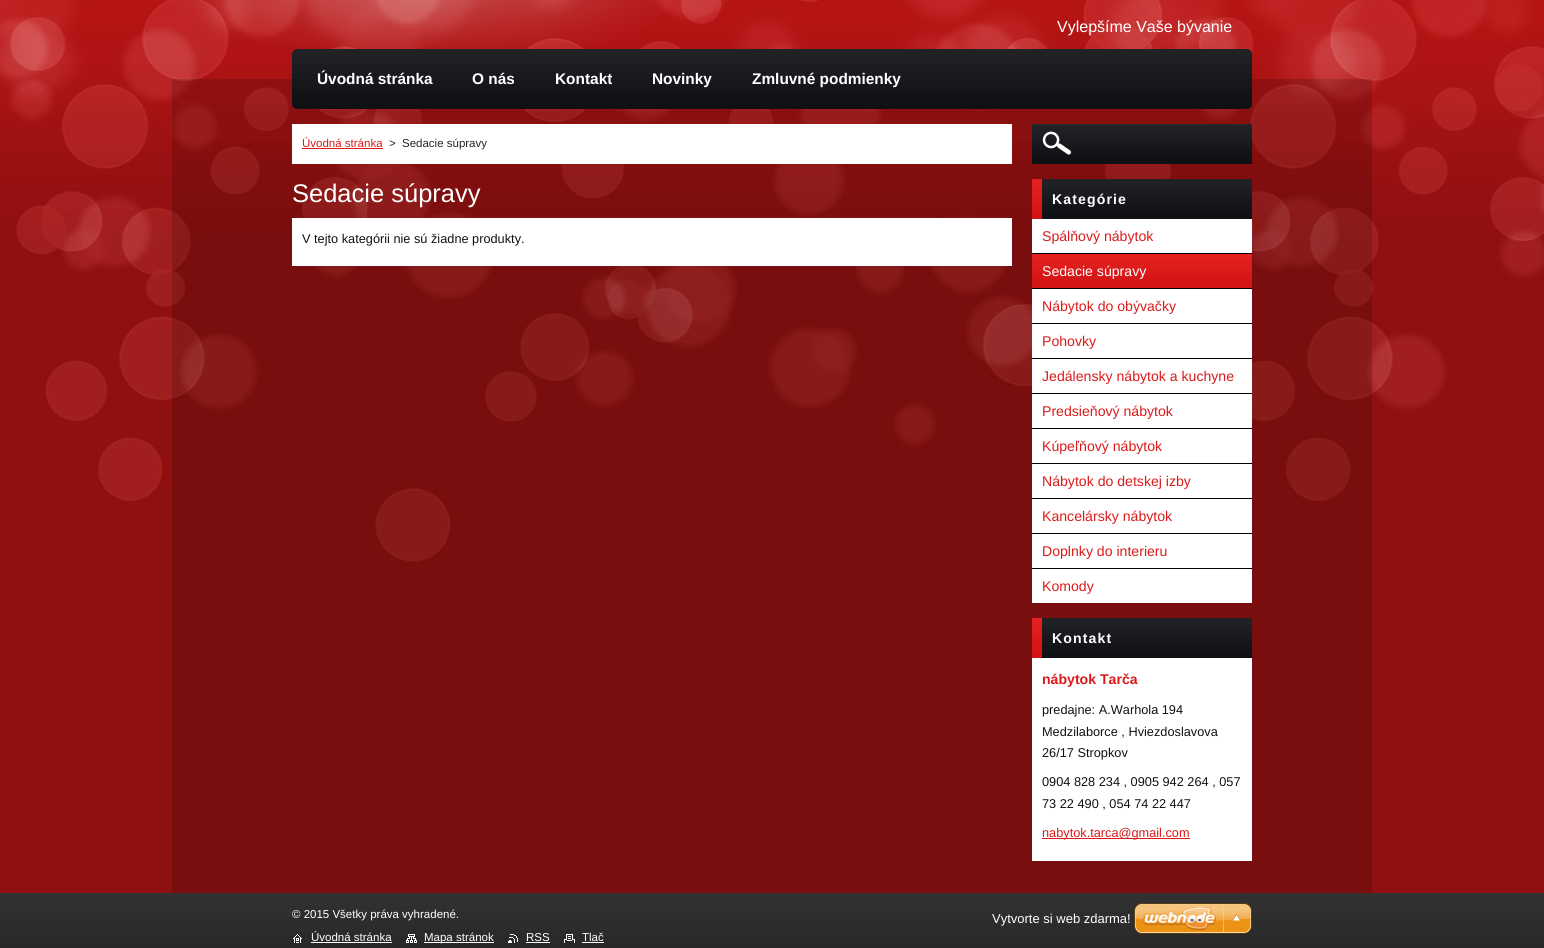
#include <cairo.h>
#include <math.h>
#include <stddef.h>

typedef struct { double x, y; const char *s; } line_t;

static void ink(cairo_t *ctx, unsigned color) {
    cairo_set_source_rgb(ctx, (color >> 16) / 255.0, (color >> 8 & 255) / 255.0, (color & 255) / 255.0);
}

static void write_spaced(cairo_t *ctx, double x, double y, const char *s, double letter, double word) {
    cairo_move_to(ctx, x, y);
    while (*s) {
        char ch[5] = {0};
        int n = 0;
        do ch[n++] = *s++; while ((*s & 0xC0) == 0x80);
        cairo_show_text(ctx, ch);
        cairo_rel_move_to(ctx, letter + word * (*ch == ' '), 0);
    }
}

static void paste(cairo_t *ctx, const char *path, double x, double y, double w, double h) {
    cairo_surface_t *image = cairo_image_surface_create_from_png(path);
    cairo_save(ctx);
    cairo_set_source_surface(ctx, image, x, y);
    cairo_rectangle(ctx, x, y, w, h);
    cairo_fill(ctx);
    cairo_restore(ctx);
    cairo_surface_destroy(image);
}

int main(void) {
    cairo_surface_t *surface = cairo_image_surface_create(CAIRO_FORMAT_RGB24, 1544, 948);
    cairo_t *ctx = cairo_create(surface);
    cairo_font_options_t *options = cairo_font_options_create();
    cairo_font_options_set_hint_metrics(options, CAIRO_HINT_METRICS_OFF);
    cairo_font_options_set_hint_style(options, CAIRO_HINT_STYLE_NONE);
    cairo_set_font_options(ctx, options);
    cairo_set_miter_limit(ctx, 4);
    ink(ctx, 0x8E1010);
    cairo_paint(ctx);
    paste(ctx, "media/1.png", 0, 0, 1544, 562);
    paste(ctx, "media/2.png", 330, 0, 922, 49);
    cairo_select_font_face(ctx, "Liberation Sans", CAIRO_FONT_SLANT_NORMAL, CAIRO_FONT_WEIGHT_NORMAL);
    cairo_set_font_size(ctx, 16);
    ink(ctx, 0xFFFFFF);
    cairo_move_to(ctx, 1057, 32);
    cairo_show_text(ctx, "Vylepšíme Vaše bývanie");
    cairo_set_source_rgba(ctx, 0, 0, 0, 0.15);
    cairo_rectangle(ctx, 172, 79, 1200, 814);
    cairo_fill(ctx);
    paste(ctx, "media/3.png", 292, 49, 960, 60);
    cairo_select_font_face(ctx, "Liberation Sans", CAIRO_FONT_SLANT_NORMAL, CAIRO_FONT_WEIGHT_BOLD);
    cairo_set_font_size(ctx, 15.4);
    ink(ctx, 0xFFFFFF);
    {
        static const line_t items[] = {
            {317, 84, "Úvodná stránka"},
            {472, 84, "O nás"},
            {555, 84, "Kontakt"},
            {652, 84, "Novinky"},
            {752, 84, "Zmluvné podmienky"},
        };
        for (size_t i = 0; i < sizeof items / sizeof *items; i++) {
            cairo_move_to(ctx, items[i].x, items[i].y);
            cairo_show_text(ctx, items[i].s);
        }
    }
    cairo_rectangle(ctx, 292, 124, 720, 40);
    cairo_fill(ctx);
    cairo_select_font_face(ctx, "Liberation Sans", CAIRO_FONT_SLANT_NORMAL, CAIRO_FONT_WEIGHT_NORMAL);
    cairo_set_font_size(ctx, 11.5);
    ink(ctx, 0xDB1A1A);
    cairo_move_to(ctx, 302, 147);
    cairo_show_text(ctx, "Úvodná stránka");
    cairo_rectangle(ctx, 302, 148, 81, 1);
    cairo_fill(ctx);
    ink(ctx, 0x252525);
    cairo_move_to(ctx, 389, 147);
    cairo_show_text(ctx, ">");
    cairo_move_to(ctx, 402, 147);
    cairo_show_text(ctx, "Sedacie súpravy");
    cairo_set_font_size(ctx, 25.5);
    ink(ctx, 0xFFFFFF);
    cairo_move_to(ctx, 292, 202);
    cairo_show_text(ctx, "Sedacie súpravy");
    cairo_rectangle(ctx, 292, 218, 720, 48);
    cairo_fill(ctx);
    cairo_set_font_size(ctx, 12.75);
    ink(ctx, 0x121212);
    cairo_move_to(ctx, 302, 243);
    cairo_show_text(ctx, "V tejto kategórii nie sú žiadne produkty.");
    ink(ctx, 0x252525);
    cairo_rectangle(ctx, 1032, 124, 220, 2);
    cairo_fill(ctx);
    paste(ctx, "media/4.png", 1032, 126, 220, 38);
    paste(ctx, "media/5.png", 1042, 131, 29, 24);
    paste(ctx, "media/6.png", 1032, 179, 220, 40);
    cairo_select_font_face(ctx, "Liberation Sans", CAIRO_FONT_SLANT_NORMAL, CAIRO_FONT_WEIGHT_BOLD);
    cairo_set_font_size(ctx, 14.1);
    ink(ctx, 0xFFFFFF);
    write_spaced(ctx, 1052, 204, "Kategórie", 1.1, 0);
    cairo_rectangle(ctx, 1032, 219, 220, 384);
    cairo_fill(ctx);
    ink(ctx, 0x000000);
    cairo_rectangle(ctx, 1032, 253, 220, 1);
    cairo_fill(ctx);
    cairo_select_font_face(ctx, "Liberation Sans", CAIRO_FONT_SLANT_NORMAL, CAIRO_FONT_WEIGHT_NORMAL);
    ink(ctx, 0xDB1A1A);
    cairo_move_to(ctx, 1042, 241);
    cairo_show_text(ctx, "Spálňový nábytok");
    paste(ctx, "media/7.png", 1032, 254, 220, 34);
    ink(ctx, 0x000000);
    cairo_rectangle(ctx, 1032, 288, 220, 1);
    cairo_fill(ctx);
    ink(ctx, 0xFFFFFF);
    cairo_move_to(ctx, 1042, 276);
    cairo_show_text(ctx, "Sedacie súpravy");
    ink(ctx, 0x000000);
    cairo_rectangle(ctx, 1032, 323, 220, 1);
    cairo_fill(ctx);
    ink(ctx, 0xDB1A1A);
    cairo_move_to(ctx, 1042, 311);
    cairo_show_text(ctx, "Nábytok do obývačky");
    ink(ctx, 0x000000);
    cairo_rectangle(ctx, 1032, 358, 220, 1);
    cairo_fill(ctx);
    ink(ctx, 0xDB1A1A);
    cairo_move_to(ctx, 1042, 346);
    cairo_show_text(ctx, "Pohovky");
    ink(ctx, 0x000000);
    cairo_rectangle(ctx, 1032, 393, 220, 1);
    cairo_fill(ctx);
    ink(ctx, 0xDB1A1A);
    cairo_move_to(ctx, 1042, 381);
    cairo_show_text(ctx, "Jedálensky nábytok a kuchyne");
    ink(ctx, 0x000000);
    cairo_rectangle(ctx, 1032, 428, 220, 1);
    cairo_fill(ctx);
    ink(ctx, 0xDB1A1A);
    cairo_move_to(ctx, 1042, 416);
    cairo_show_text(ctx, "Predsieňový nábytok");
    ink(ctx, 0x000000);
    cairo_rectangle(ctx, 1032, 463, 220, 1);
    cairo_fill(ctx);
    ink(ctx, 0xDB1A1A);
    cairo_move_to(ctx, 1042, 451);
    cairo_show_text(ctx, "Kúpeľňový nábytok");
    ink(ctx, 0x000000);
    cairo_rectangle(ctx, 1032, 498, 220, 1);
    cairo_fill(ctx);
    ink(ctx, 0xDB1A1A);
    cairo_move_to(ctx, 1042, 486);
    cairo_show_text(ctx, "Nábytok do detskej izby");
    ink(ctx, 0x000000);
    cairo_rectangle(ctx, 1032, 533, 220, 1);
    cairo_fill(ctx);
    ink(ctx, 0xDB1A1A);
    cairo_move_to(ctx, 1042, 521);
    cairo_show_text(ctx, "Kancelársky nábytok");
    ink(ctx, 0x000000);
    cairo_rectangle(ctx, 1032, 568, 220, 1);
    cairo_fill(ctx);
    ink(ctx, 0xDB1A1A);
    cairo_move_to(ctx, 1042, 556);
    cairo_show_text(ctx, "Doplnky do interieru");
    cairo_move_to(ctx, 1042, 591);
    cairo_show_text(ctx, "Komody");
    paste(ctx, "media/6.png", 1032, 618, 220, 40);
    cairo_select_font_face(ctx, "Liberation Sans", CAIRO_FONT_SLANT_NORMAL, CAIRO_FONT_WEIGHT_BOLD);
    ink(ctx, 0xFFFFFF);
    write_spaced(ctx, 1052, 643, "Kontakt", 1.1, 0);
    cairo_rectangle(ctx, 1032, 658, 220, 203);
    cairo_fill(ctx);
    ink(ctx, 0xDB1A1A);
    cairo_move_to(ctx, 1042, 684);
    cairo_show_text(ctx, "nábytok Tarča");
    cairo_select_font_face(ctx, "Liberation Sans", CAIRO_FONT_SLANT_NORMAL, CAIRO_FONT_WEIGHT_NORMAL);
    cairo_set_font_size(ctx, 12.75);
    ink(ctx, 0x121212);
    {
        static const line_t items[] = {
            {1042, 714, "predajne: A.Warhola 194"},
            {1042, 736, "Medzilaborce , Hviezdoslavova"},
            {1042, 757, "26/17 Stropkov"},
            {1042, 786, "0904 828 234 , 0905 942 264 , 057"},
            {1042, 808, "73 22 490 , 054 74 22 447"},
        };
        for (size_t i = 0; i < sizeof items / sizeof *items; i++) {
            cairo_move_to(ctx, items[i].x, items[i].y);
            cairo_show_text(ctx, items[i].s);
        }
    }
    ink(ctx, 0xDB1A1A);
    cairo_rectangle(ctx, 1042, 838, 148, 1);
    cairo_fill(ctx);
    cairo_move_to(ctx, 1042, 837);
    cairo_show_text(ctx, "nabytok.tarca@gmail.com");
    paste(ctx, "media/8.png", 0, 893, 1544, 55);
    cairo_set_font_size(ctx, 11.5);
    ink(ctx, 0xFFFFFF);
    cairo_move_to(ctx, 292, 918);
    cairo_show_text(ctx, "© 2015 Všetky práva vyhradené.");
    paste(ctx, "media/9.png", 293, 934, 9, 9);
    cairo_move_to(ctx, 311, 941);
    cairo_show_text(ctx, "Úvodná stránka");
    cairo_rectangle(ctx, 311, 942, 81, 1);
    cairo_fill(ctx);
    paste(ctx, "media/10.png", 406, 934, 11, 9);
    cairo_rectangle(ctx, 424, 942, 70, 1);
    cairo_fill(ctx);
    cairo_move_to(ctx, 424, 941);
    cairo_show_text(ctx, "Mapa stránok");
    paste(ctx, "media/11.png", 508, 934, 10, 9);
    cairo_move_to(ctx, 526, 941);
    cairo_show_text(ctx, "RSS");
    cairo_rectangle(ctx, 526, 942, 24, 1);
    cairo_fill(ctx);
    paste(ctx, "media/12.png", 564, 934, 11, 9);
    cairo_move_to(ctx, 582, 941);
    cairo_show_text(ctx, "Tlač");
    cairo_rectangle(ctx, 582, 942, 22, 1);
    cairo_fill(ctx);
    cairo_set_font_size(ctx, 13);
    cairo_move_to(ctx, 992, 923);
    cairo_show_text(ctx, "Vytvorte si web zdarma!");
    paste(ctx, "media/13.png", 1134, 903, 118, 31);
    cairo_surface_write_to_png(surface, "image.png");
    cairo_font_options_destroy(options);
    cairo_destroy(ctx);
    cairo_surface_destroy(surface);
    return 0;
}
